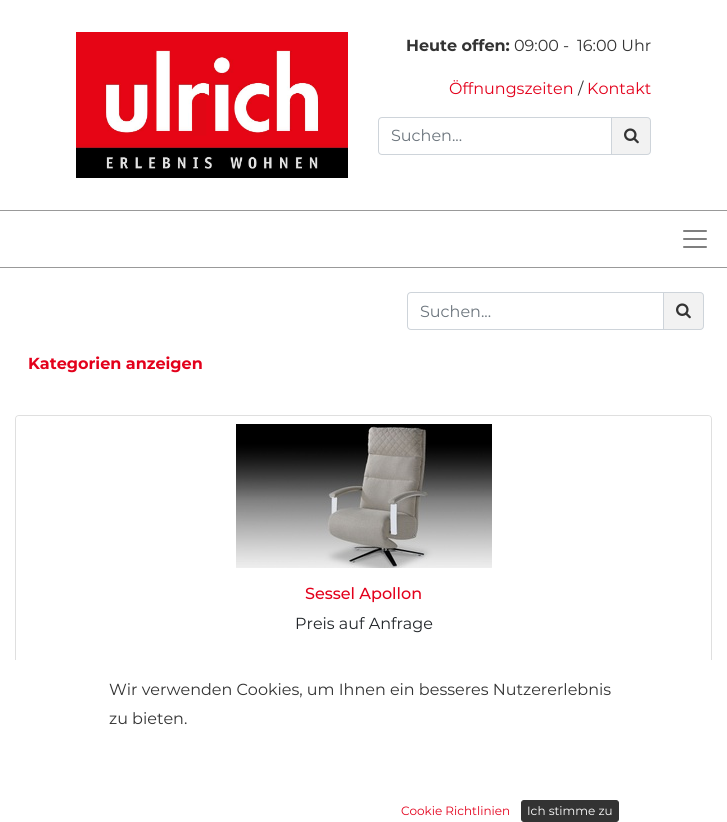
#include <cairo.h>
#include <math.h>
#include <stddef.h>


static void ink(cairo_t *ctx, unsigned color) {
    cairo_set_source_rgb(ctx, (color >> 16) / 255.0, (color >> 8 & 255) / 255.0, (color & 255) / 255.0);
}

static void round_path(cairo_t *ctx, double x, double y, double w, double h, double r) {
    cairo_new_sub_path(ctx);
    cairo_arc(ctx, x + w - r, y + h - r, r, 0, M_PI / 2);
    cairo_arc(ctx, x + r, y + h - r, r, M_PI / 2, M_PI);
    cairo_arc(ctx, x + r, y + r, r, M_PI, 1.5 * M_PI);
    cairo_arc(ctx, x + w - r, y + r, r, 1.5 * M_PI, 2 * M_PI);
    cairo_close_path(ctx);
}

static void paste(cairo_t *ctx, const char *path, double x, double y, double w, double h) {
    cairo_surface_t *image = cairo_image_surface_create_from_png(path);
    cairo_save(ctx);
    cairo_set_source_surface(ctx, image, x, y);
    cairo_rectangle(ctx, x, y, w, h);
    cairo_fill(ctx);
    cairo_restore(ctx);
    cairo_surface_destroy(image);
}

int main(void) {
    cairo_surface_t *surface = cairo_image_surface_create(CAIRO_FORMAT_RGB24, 727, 822);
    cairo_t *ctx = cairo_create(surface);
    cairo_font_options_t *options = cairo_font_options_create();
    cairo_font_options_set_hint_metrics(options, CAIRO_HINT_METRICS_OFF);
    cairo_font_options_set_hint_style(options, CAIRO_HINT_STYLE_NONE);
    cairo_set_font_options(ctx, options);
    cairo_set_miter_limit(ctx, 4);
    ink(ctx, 0xFFFFFF);
    cairo_paint(ctx);
    paste(ctx, "media/1.png", 76, 32, 272, 146);
    cairo_select_font_face(ctx, "Montserrat", CAIRO_FONT_SLANT_NORMAL, CAIRO_FONT_WEIGHT_BOLD);
    cairo_set_font_size(ctx, 16);
    ink(ctx, 0x333333);
    cairo_move_to(ctx, 406, 51);
    cairo_show_text(ctx, "Heute offen:");
    cairo_select_font_face(ctx, "Montserrat", CAIRO_FONT_SLANT_NORMAL, CAIRO_FONT_WEIGHT_NORMAL);
    cairo_move_to(ctx, 514, 51);
    cairo_show_text(ctx, "09:00 -");
    cairo_move_to(ctx, 577, 51);
    cairo_show_text(ctx, "16:00 Uhr");
    ink(ctx, 0xE3001B);
    cairo_move_to(ctx, 449, 94);
    cairo_show_text(ctx, "Öffnungszeiten");
    ink(ctx, 0x333333);
    cairo_move_to(ctx, 578, 94);
    cairo_show_text(ctx, "/");
    ink(ctx, 0xE3001B);
    cairo_move_to(ctx, 587, 94);
    cairo_show_text(ctx, "Kontakt");
    cairo_new_path(ctx);
    cairo_move_to(ctx, 382, 117.5);
    cairo_line_to(ctx, 611.5, 117.5);
    cairo_line_to(ctx, 611.5, 154.5);
    cairo_line_to(ctx, 382, 154.5);
    cairo_curve_to(ctx, 380, 154.5, 378.5, 153, 378.5, 151);
    cairo_line_to(ctx, 378.5, 121);
    cairo_curve_to(ctx, 378.5, 119, 380, 117.5, 382, 117.5);
    cairo_close_path(ctx);
    ink(ctx, 0xCED4DA);
    cairo_set_line_width(ctx, 1);
    cairo_stroke(ctx);
    ink(ctx, 0x6C757D);
    cairo_move_to(ctx, 391, 141);
    cairo_show_text(ctx, "Suchen...");
    ink(ctx, 0xF2F2F2);
    cairo_new_path(ctx);
    cairo_move_to(ctx, 611.5, 117.5);
    cairo_line_to(ctx, 647, 117.5);
    cairo_curve_to(ctx, 649, 117.5, 650.5, 119, 650.5, 121);
    cairo_line_to(ctx, 650.5, 151);
    cairo_curve_to(ctx, 650.5, 153, 649, 154.5, 647, 154.5);
    cairo_line_to(ctx, 611.5, 154.5);
    cairo_close_path(ctx);
    cairo_fill_preserve(ctx);
    ink(ctx, 0xCED4DA);
    cairo_stroke(ctx);
    paste(ctx, "media/2.png", 624, 128, 15, 16);
    ink(ctx, 0x999999);
    cairo_rectangle(ctx, 0, 210, 727, 1);
    cairo_fill(ctx);
    cairo_rectangle(ctx, 0, 267, 727, 1);
    cairo_fill(ctx);
    paste(ctx, "media/3.png", 683, 230, 24, 18);
    cairo_new_path(ctx);
    cairo_move_to(ctx, 411, 292.5);
    cairo_line_to(ctx, 663.5, 292.5);
    cairo_line_to(ctx, 663.5, 329.5);
    cairo_line_to(ctx, 411, 329.5);
    cairo_curve_to(ctx, 409, 329.5, 407.5, 328, 407.5, 326);
    cairo_line_to(ctx, 407.5, 296);
    cairo_curve_to(ctx, 407.5, 294, 409, 292.5, 411, 292.5);
    cairo_close_path(ctx);
    ink(ctx, 0xCED4DA);
    cairo_stroke(ctx);
    ink(ctx, 0x6C757D);
    cairo_move_to(ctx, 420, 317);
    cairo_show_text(ctx, "Suchen...");
    ink(ctx, 0xF2F2F2);
    cairo_new_path(ctx);
    cairo_move_to(ctx, 663.5, 292.5);
    cairo_line_to(ctx, 700, 292.5);
    cairo_curve_to(ctx, 702, 292.5, 703.5, 294, 703.5, 296);
    cairo_line_to(ctx, 703.5, 326);
    cairo_curve_to(ctx, 703.5, 328, 702, 329.5, 700, 329.5);
    cairo_line_to(ctx, 663.5, 329.5);
    cairo_close_path(ctx);
    cairo_fill_preserve(ctx);
    ink(ctx, 0xCED4DA);
    cairo_stroke(ctx);
    paste(ctx, "media/2.png", 676, 303, 15, 16);
    cairo_select_font_face(ctx, "Montserrat", CAIRO_FONT_SLANT_NORMAL, CAIRO_FONT_WEIGHT_BOLD);
    ink(ctx, 0xE3001B);
    cairo_move_to(ctx, 28, 369);
    cairo_show_text(ctx, "Kategorien anzeigen");
    round_path(ctx, 15.5, 415.5, 696, 257, 3.5);
    ink(ctx, 0xDFDFDF);
    cairo_stroke(ctx);
    cairo_set_source_rgba(ctx, 1, 1, 1, 0.9);
    cairo_new_path(ctx);
    cairo_move_to(ctx, 19, 416);
    cairo_line_to(ctx, 708, 416);
    cairo_curve_to(ctx, 709.5, 416, 711, 417.5, 711, 419);
    cairo_line_to(ctx, 711, 576);
    cairo_line_to(ctx, 16, 576);
    cairo_line_to(ctx, 16, 419);
    cairo_curve_to(ctx, 16, 417.5, 17.5, 416, 19, 416);
    cairo_close_path(ctx);
    cairo_fill(ctx);
    paste(ctx, "media/4.png", 236, 424, 256, 144);
    cairo_select_font_face(ctx, "Montserrat Medium", CAIRO_FONT_SLANT_NORMAL, CAIRO_FONT_WEIGHT_NORMAL);
    ink(ctx, 0xE3001B);
    cairo_move_to(ctx, 305, 599);
    cairo_show_text(ctx, "Sessel Apollon");
    cairo_select_font_face(ctx, "Montserrat", CAIRO_FONT_SLANT_NORMAL, CAIRO_FONT_WEIGHT_NORMAL);
    ink(ctx, 0x212529);
    cairo_move_to(ctx, 295, 629);
    cairo_show_text(ctx, "Preis auf Anfrage");
    ink(ctx, 0xFFFFFF);
    cairo_rectangle(ctx, 15, 660, 697, 13);
    cairo_fill(ctx);
    ink(ctx, 0x333333);
    cairo_move_to(ctx, 109, 695);
    cairo_show_text(ctx, "Wir verwenden Cookies, um Ihnen ein besseres Nutzererlebnis");
    cairo_move_to(ctx, 109, 724);
    cairo_show_text(ctx, "zu bieten.");
    cairo_set_font_size(ctx, 12);
    ink(ctx, 0xE3001B);
    cairo_move_to(ctx, 401, 815);
    cairo_show_text(ctx, "Cookie Richtlinien");
    ink(ctx, 0x333333);
    round_path(ctx, 521.5, 800.5, 97, 21, 2.5);
    cairo_fill_preserve(ctx);
    cairo_stroke(ctx);
    ink(ctx, 0xFFFFFF);
    cairo_move_to(ctx, 527, 815);
    cairo_show_text(ctx, "Ich stimme zu");
    cairo_surface_write_to_png(surface, "image.png");
    cairo_font_options_destroy(options);
    cairo_destroy(ctx);
    cairo_surface_destroy(surface);
    return 0;
}
